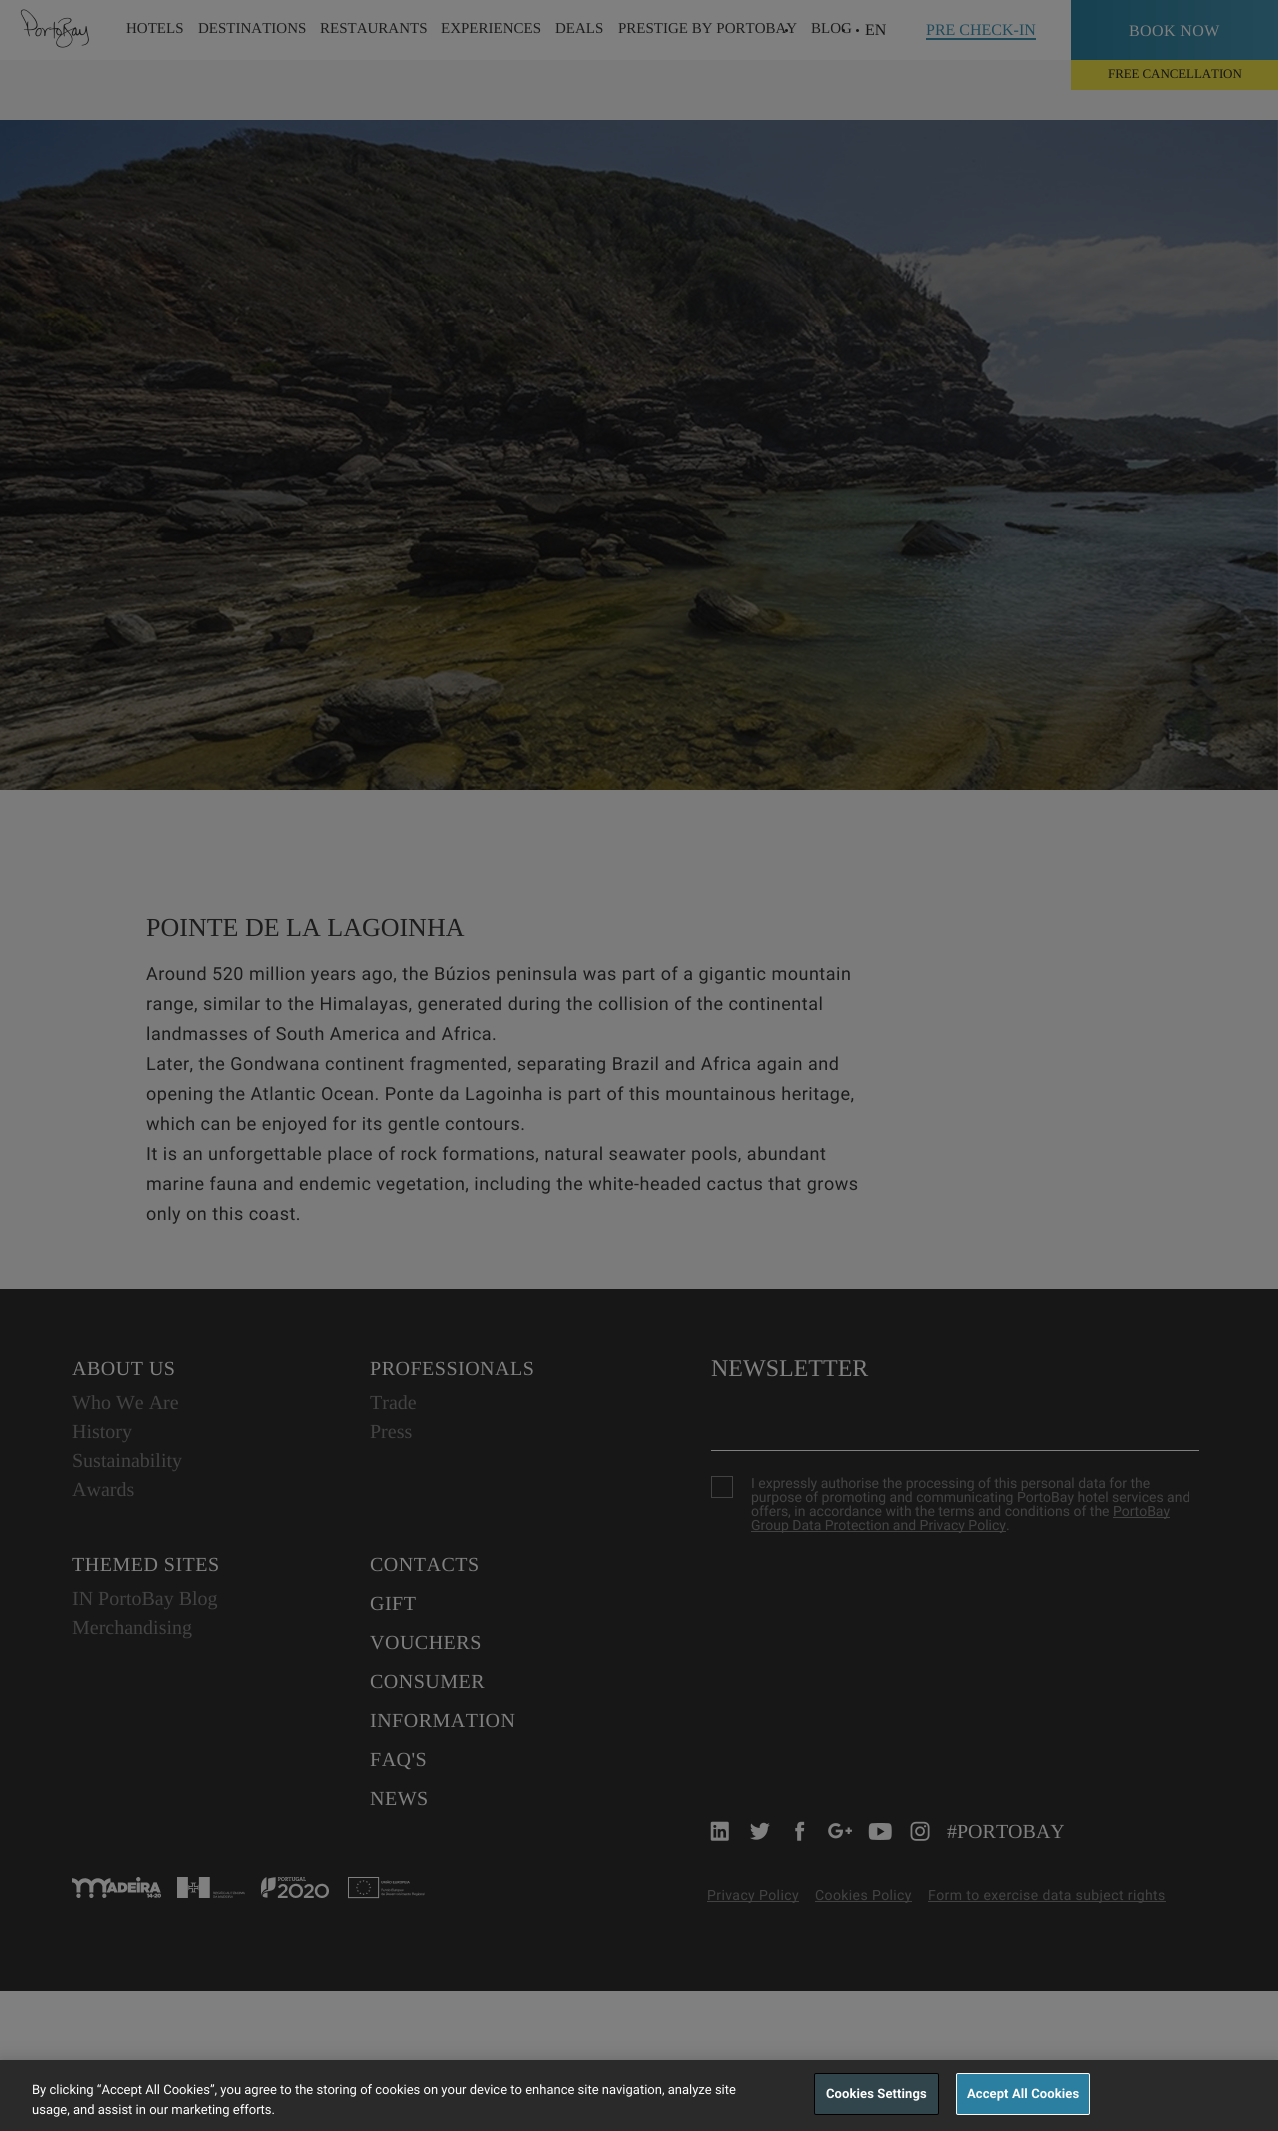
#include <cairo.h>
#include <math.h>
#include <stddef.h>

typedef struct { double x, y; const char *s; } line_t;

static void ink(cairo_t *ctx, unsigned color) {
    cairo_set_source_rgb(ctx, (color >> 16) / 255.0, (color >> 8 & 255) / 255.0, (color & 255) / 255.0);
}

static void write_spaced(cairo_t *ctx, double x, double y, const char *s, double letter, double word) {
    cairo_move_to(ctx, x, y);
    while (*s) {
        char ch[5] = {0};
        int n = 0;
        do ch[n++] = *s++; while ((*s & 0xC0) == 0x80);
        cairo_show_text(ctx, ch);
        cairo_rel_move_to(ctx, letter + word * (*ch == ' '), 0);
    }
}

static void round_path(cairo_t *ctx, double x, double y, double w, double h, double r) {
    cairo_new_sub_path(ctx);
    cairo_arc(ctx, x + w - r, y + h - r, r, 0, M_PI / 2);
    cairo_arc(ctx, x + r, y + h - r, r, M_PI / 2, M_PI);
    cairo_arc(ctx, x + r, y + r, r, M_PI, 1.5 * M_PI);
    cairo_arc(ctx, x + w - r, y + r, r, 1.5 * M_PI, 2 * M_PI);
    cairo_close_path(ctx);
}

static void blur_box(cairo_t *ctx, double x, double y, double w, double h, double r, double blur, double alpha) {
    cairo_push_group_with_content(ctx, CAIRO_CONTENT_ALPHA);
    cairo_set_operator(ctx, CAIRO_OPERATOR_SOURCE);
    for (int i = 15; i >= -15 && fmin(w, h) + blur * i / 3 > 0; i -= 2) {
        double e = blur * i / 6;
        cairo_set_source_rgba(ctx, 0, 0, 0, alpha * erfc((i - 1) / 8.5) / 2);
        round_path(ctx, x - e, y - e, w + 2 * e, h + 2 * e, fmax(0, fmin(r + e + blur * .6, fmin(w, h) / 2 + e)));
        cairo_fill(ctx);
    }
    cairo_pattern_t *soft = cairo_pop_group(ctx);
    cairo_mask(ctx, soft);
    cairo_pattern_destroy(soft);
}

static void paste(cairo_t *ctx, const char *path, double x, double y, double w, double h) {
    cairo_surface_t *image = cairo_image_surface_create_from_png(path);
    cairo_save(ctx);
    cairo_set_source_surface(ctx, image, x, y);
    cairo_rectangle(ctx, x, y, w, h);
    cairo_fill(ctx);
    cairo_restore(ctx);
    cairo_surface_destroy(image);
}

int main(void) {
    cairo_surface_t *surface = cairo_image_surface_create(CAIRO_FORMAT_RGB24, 1278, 2131);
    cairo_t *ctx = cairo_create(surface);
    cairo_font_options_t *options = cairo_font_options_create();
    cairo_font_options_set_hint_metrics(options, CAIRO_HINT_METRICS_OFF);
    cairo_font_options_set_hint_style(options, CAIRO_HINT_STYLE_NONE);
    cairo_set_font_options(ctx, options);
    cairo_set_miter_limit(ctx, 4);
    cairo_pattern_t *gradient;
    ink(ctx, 0x808080);
    cairo_paint(ctx);
    paste(ctx, "media/1.png", 20, 9, 69, 39);
    cairo_select_font_face(ctx, "Liberation Serif", CAIRO_FONT_SLANT_NORMAL, CAIRO_FONT_WEIGHT_NORMAL);
    cairo_set_font_size(ctx, 15);
    ink(ctx, 0x1C1C1C);
    {
        static const line_t items[] = {
            {126, 33, "HOTELS"},
            {198, 33, "DESTINATIONS"},
            {320, 33, "RESTAURANTS"},
            {441, 33, "EXPERIENCES"},
            {555, 33, "DEALS"},
            {618, 33, "PRESTIGE BY PORTOBAY"},
            {811, 33, "BLOG"},
        };
        for (size_t i = 0; i < sizeof items / sizeof *items; i++) {
            cairo_move_to(ctx, items[i].x, items[i].y);
            cairo_show_text(ctx, items[i].s);
        }
    }
    ink(ctx, 0x171717);
    cairo_new_path(ctx);
    cairo_arc(ctx, 857.5, 30.5, 1.5, 0, 2 * M_PI);
    cairo_fill(ctx);
    cairo_arc(ctx, 786.5, 30.5, 1.5, 0, 2 * M_PI);
    cairo_fill(ctx);
    cairo_arc(ctx, 843.5, 30.5, 1.5, 0, 2 * M_PI);
    cairo_fill(ctx);
    cairo_set_font_size(ctx, 16);
    ink(ctx, 0x151515);
    cairo_move_to(ctx, 865, 35);
    cairo_show_text(ctx, "EN");
    ink(ctx, 0x1F4959);
    cairo_move_to(ctx, 926, 35);
    cairo_show_text(ctx, "PRE CHECK-IN");
    cairo_rectangle(ctx, 926, 38, 110, 2);
    cairo_fill(ctx);
    gradient = cairo_pattern_create_linear(1071, 185, 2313, 185);
    cairo_pattern_add_color_stop_rgba(gradient, 0, 0.086, 0.251, 0.314, 1);
    cairo_pattern_add_color_stop_rgba(gradient, 0.5, 0.235, 0.365, 0.412, 1);
    cairo_pattern_add_color_stop_rgba(gradient, 1, 0.086, 0.251, 0.314, 1);
    cairo_set_source(ctx, gradient);
    cairo_pattern_destroy(gradient);
    cairo_rectangle(ctx, 1071, 0, 207, 60);
    cairo_fill(ctx);
    ink(ctx, 0x808080);
    write_spaced(ctx, 1129, 36, "BOOK NOW", 0.4, 0);
    ink(ctx, 0x7B7B7B);
    cairo_rectangle(ctx, 0, 60, 1278, 1229);
    cairo_fill(ctx);
    ink(ctx, 0x797124);
    cairo_rectangle(ctx, 1071, 60, 207, 30);
    cairo_fill(ctx);
    cairo_set_font_size(ctx, 13);
    ink(ctx, 0x151515);
    write_spaced(ctx, 1108, 78, "FREE CANCELLATION", -0.1, 0);
    paste(ctx, "media/2.png", 0, 120, 1278, 670);
    cairo_set_font_size(ctx, 26);
    ink(ctx, 0x1C1C1C);
    cairo_move_to(ctx, 146, 936);
    cairo_show_text(ctx, "POINTE DE LA LAGOINHA");
    cairo_select_font_face(ctx, "Roboto", CAIRO_FONT_SLANT_NORMAL, CAIRO_FONT_WEIGHT_NORMAL);
    cairo_set_font_size(ctx, 18);
    {
        static const line_t items[] = {
            {146, 980, "Around 520 million years ago, the Búzios peninsula was part of a gigantic mountain"},
            {146, 1010, "range, similar to the Himalayas, generated during the collision of the continental"},
            {146, 1040, "landmasses of South America and Africa."},
            {146, 1070, "Later, the Gondwana continent fragmented, separating Brazil and Africa again and"},
            {146, 1100, "opening the Atlantic Ocean. Ponte da Lagoinha is part of this mountainous heritage,"},
            {146, 1130, "which can be enjoyed for its gentle contours."},
            {146, 1160, "It is an unforgettable place of rock formations, natural seawater pools, abundant"},
            {146, 1190, "marine fauna and endemic vegetation, including the white-headed cactus that grows"},
            {146, 1220, "only on this coast."},
        };
        for (size_t i = 0; i < sizeof items / sizeof *items; i++) {
            write_spaced(ctx, items[i].x, items[i].y, items[i].s, 0.5, 0);
        }
    }
    ink(ctx, 0x171717);
    cairo_rectangle(ctx, 0, 1289, 1278, 702);
    cairo_fill(ctx);
    cairo_select_font_face(ctx, "Liberation Serif", CAIRO_FONT_SLANT_NORMAL, CAIRO_FONT_WEIGHT_NORMAL);
    cairo_set_font_size(ctx, 20);
    ink(ctx, 0x808080);
    write_spaced(ctx, 72, 1375, "ABOUT US", 0.5, 0);
    ink(ctx, 0x424242);
    {
        static const line_t items[] = {
            {72, 1409, "Who We Are"},
            {72, 1438, "History"},
            {72, 1467, "Sustainability"},
            {72, 1496, "Awards"},
        };
        for (size_t i = 0; i < sizeof items / sizeof *items; i++) {
            cairo_move_to(ctx, items[i].x, items[i].y);
            cairo_show_text(ctx, items[i].s);
        }
    }
    ink(ctx, 0x808080);
    write_spaced(ctx, 370, 1375, "PROFESSIONALS", 0.5, 0);
    ink(ctx, 0x424242);
    cairo_move_to(ctx, 370, 1409);
    cairo_show_text(ctx, "Trade");
    cairo_move_to(ctx, 370, 1438);
    cairo_show_text(ctx, "Press");
    ink(ctx, 0x808080);
    write_spaced(ctx, 72, 1571, "THEMED SITES", 0.5, 0);
    ink(ctx, 0x424242);
    cairo_move_to(ctx, 72, 1605);
    cairo_show_text(ctx, "IN PortoBay Blog");
    cairo_move_to(ctx, 72, 1634);
    cairo_show_text(ctx, "Merchandising");
    ink(ctx, 0x808080);
    {
        static const line_t items[] = {
            {370, 1571, "CONTACTS"},
            {370, 1610, "GIFT"},
            {370, 1649, "VOUCHERS"},
            {370, 1688, "CONSUMER"},
            {370, 1727, "INFORMATION"},
            {370, 1766, "FAQ'S"},
            {370, 1805, "NEWS"},
        };
        for (size_t i = 0; i < sizeof items / sizeof *items; i++) {
            write_spaced(ctx, items[i].x, items[i].y, items[i].s, 0.5, 0);
        }
    }
    cairo_set_font_size(ctx, 24);
    cairo_move_to(ctx, 711, 1376);
    cairo_show_text(ctx, "NEWSLETTER");
    cairo_rectangle(ctx, 711, 1450, 488, 1);
    cairo_fill(ctx);
    cairo_rectangle(ctx, 711.5, 1476.5, 21, 21);
    ink(ctx, 0x424242);
    cairo_set_line_width(ctx, 1);
    cairo_stroke(ctx);
    cairo_select_font_face(ctx, "Roboto", CAIRO_FONT_SLANT_NORMAL, CAIRO_FONT_WEIGHT_NORMAL);
    cairo_set_font_size(ctx, 14);
    {
        static const line_t items[] = {
            {751, 1488, "I expressly authorise the processing of this personal data for the"},
            {751, 1502, "purpose of promoting and communicating PortoBay hotel services and"},
            {751, 1516, "offers, in accordance with the terms and conditions of the"},
        };
        for (size_t i = 0; i < sizeof items / sizeof *items; i++) {
            cairo_move_to(ctx, items[i].x, items[i].y);
            cairo_show_text(ctx, items[i].s);
        }
    }
    cairo_rectangle(ctx, 1113, 1517, 57, 1);
    cairo_fill(ctx);
    cairo_move_to(ctx, 1113, 1516);
    cairo_show_text(ctx, "PortoBay");
    cairo_rectangle(ctx, 751, 1531, 255, 1);
    cairo_fill(ctx);
    cairo_move_to(ctx, 751, 1530);
    cairo_show_text(ctx, "Group Data Protection and Privacy Policy.");
    paste(ctx, "media/3.png", 710, 1821, 19, 20);
    paste(ctx, "media/4.png", 750, 1822, 20, 18);
    paste(ctx, "media/5.png", 795, 1821, 10, 20);
    paste(ctx, "media/6.png", 828, 1823, 24, 16);
    paste(ctx, "media/7.png", 868, 1823, 24, 17);
    paste(ctx, "media/8.png", 910, 1821, 20, 20);
    cairo_select_font_face(ctx, "Liberation Serif", CAIRO_FONT_SLANT_NORMAL, CAIRO_FONT_WEIGHT_NORMAL);
    cairo_set_font_size(ctx, 20);
    ink(ctx, 0x808080);
    cairo_move_to(ctx, 947, 1838);
    cairo_show_text(ctx, "#PORTOBAY");
    paste(ctx, "media/9.png", 72, 1877, 257, 21);
    paste(ctx, "media/10.png", 348, 1877, 77, 22);
    ink(ctx, 0x424242);
    cairo_rectangle(ctx, 707, 1901, 92, 1);
    cairo_fill(ctx);
    cairo_select_font_face(ctx, "Roboto", CAIRO_FONT_SLANT_NORMAL, CAIRO_FONT_WEIGHT_NORMAL);
    cairo_set_font_size(ctx, 14);
    write_spaced(ctx, 707, 1900, "Privacy Policy", 0.4, 0);
    cairo_rectangle(ctx, 815, 1901, 97, 1);
    cairo_fill(ctx);
    write_spaced(ctx, 815, 1900, "Cookies Policy", 0.4, 0);
    cairo_rectangle(ctx, 928, 1901, 238, 1);
    cairo_fill(ctx);
    write_spaced(ctx, 928, 1900, "Form to exercise data subject rights", 0.4, 0);
    ink(ctx, 0x000000);
    blur_box(ctx, 0, 2060, 1278, 71, 0, 9, 0.2);
    ink(ctx, 0x2A2A2A);
    cairo_rectangle(ctx, 0, 2060, 1278, 71);
    cairo_fill(ctx);
    cairo_set_font_size(ctx, 13);
    ink(ctx, 0xFFFFFF);
    cairo_move_to(ctx, 32, 2094);
    cairo_show_text(ctx, "By clicking “Accept All Cookies”, you agree to the storing of cookies on your device to enhance site navigation, analyze site");
    cairo_move_to(ctx, 32, 2114);
    cairo_show_text(ctx, "usage, and assist in our marketing efforts.");
    ink(ctx, 0x31454D);
    round_path(ctx, 814.5, 2073.5, 124, 41, 1.5);
    cairo_fill_preserve(ctx);
    ink(ctx, 0x000000);
    cairo_stroke(ctx);
    cairo_select_font_face(ctx, "Roboto", CAIRO_FONT_SLANT_NORMAL, CAIRO_FONT_WEIGHT_BOLD);
    ink(ctx, 0xFFFFFF);
    write_spaced(ctx, 826, 2098, "Cookies Settings", 0.1, 0);
    ink(ctx, 0x2B7FA0);
    round_path(ctx, 956.5, 2073.5, 133, 41, 1.5);
    cairo_fill_preserve(ctx);
    ink(ctx, 0xFFFFFF);
    cairo_stroke(ctx);
    write_spaced(ctx, 967, 2098, "Accept All Cookies", 0.1, 0);
    cairo_surface_write_to_png(surface, "image.png");
    cairo_font_options_destroy(options);
    cairo_destroy(ctx);
    cairo_surface_destroy(surface);
    return 0;
}
